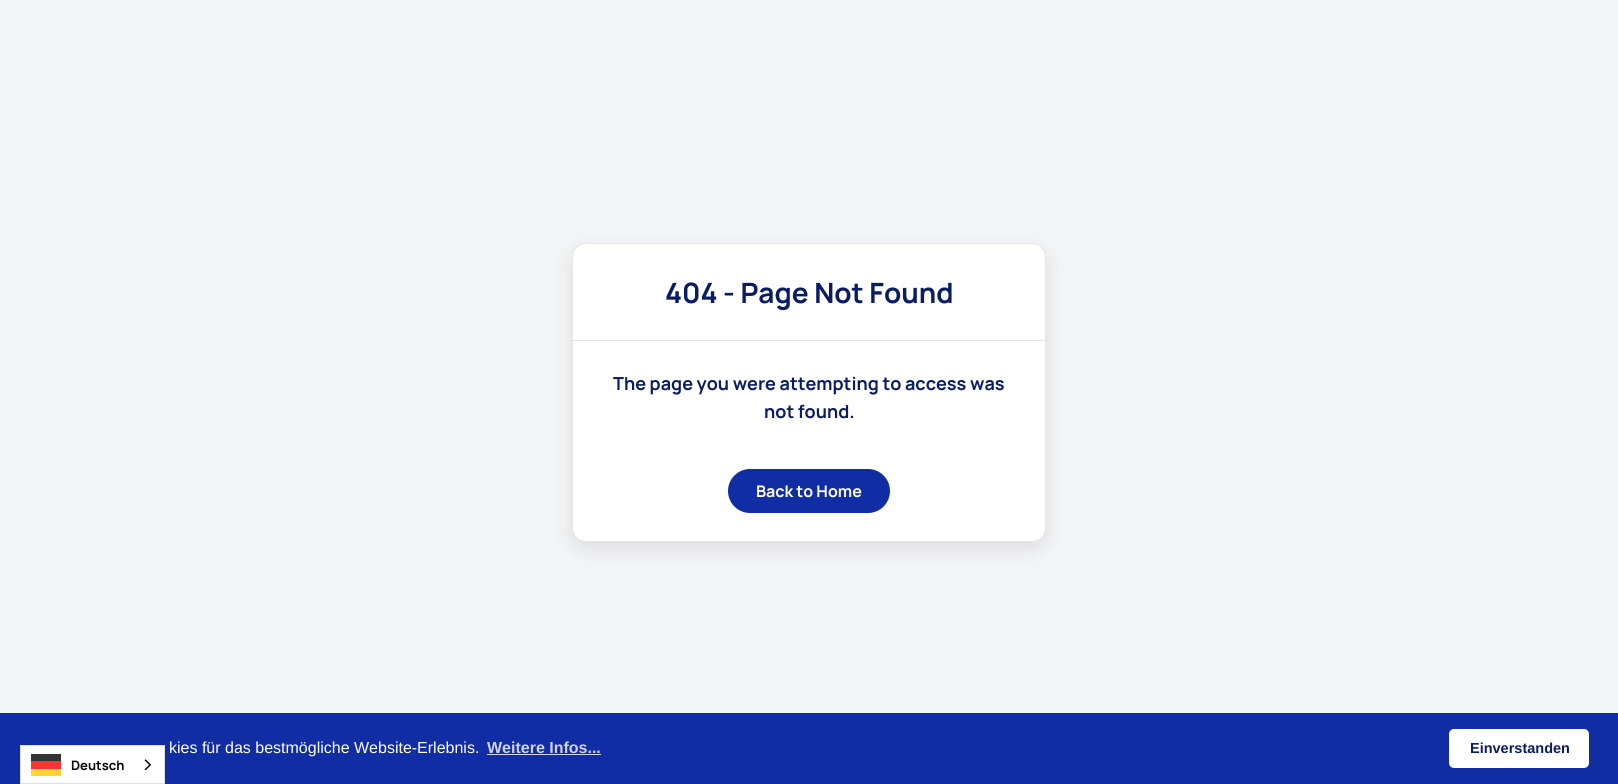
#include <cairo.h>
#include <math.h>
#include <stddef.h>

typedef struct { double x, y, w, h; unsigned color; } box_t;

static void ink(cairo_t *ctx, unsigned color) {
    cairo_set_source_rgb(ctx, (color >> 16) / 255.0, (color >> 8 & 255) / 255.0, (color & 255) / 255.0);
}

static void round_path(cairo_t *ctx, double x, double y, double w, double h, double r) {
    cairo_new_sub_path(ctx);
    cairo_arc(ctx, x + w - r, y + h - r, r, 0, M_PI / 2);
    cairo_arc(ctx, x + r, y + h - r, r, M_PI / 2, M_PI);
    cairo_arc(ctx, x + r, y + r, r, M_PI, 1.5 * M_PI);
    cairo_arc(ctx, x + w - r, y + r, r, 1.5 * M_PI, 2 * M_PI);
    cairo_close_path(ctx);
}

static void blur_box(cairo_t *ctx, double x, double y, double w, double h, double r, double blur, double alpha) {
    cairo_push_group_with_content(ctx, CAIRO_CONTENT_ALPHA);
    cairo_set_operator(ctx, CAIRO_OPERATOR_SOURCE);
    for (int i = 15; i >= -15 && fmin(w, h) + blur * i / 3 > 0; i -= 2) {
        double e = blur * i / 6;
        cairo_set_source_rgba(ctx, 0, 0, 0, alpha * erfc((i - 1) / 8.5) / 2);
        round_path(ctx, x - e, y - e, w + 2 * e, h + 2 * e, fmax(0, fmin(r + e + blur * .6, fmin(w, h) / 2 + e)));
        cairo_fill(ctx);
    }
    cairo_pattern_t *soft = cairo_pop_group(ctx);
    cairo_mask(ctx, soft);
    cairo_pattern_destroy(soft);
}

static void paste(cairo_t *ctx, const char *path, double x, double y, double w, double h) {
    cairo_surface_t *image = cairo_image_surface_create_from_png(path);
    cairo_save(ctx);
    cairo_set_source_surface(ctx, image, x, y);
    cairo_rectangle(ctx, x, y, w, h);
    cairo_fill(ctx);
    cairo_restore(ctx);
    cairo_surface_destroy(image);
}

int main(void) {
    cairo_surface_t *surface = cairo_image_surface_create(CAIRO_FORMAT_RGB24, 1618, 784);
    cairo_t *ctx = cairo_create(surface);
    cairo_font_options_t *options = cairo_font_options_create();
    cairo_font_options_set_hint_metrics(options, CAIRO_HINT_METRICS_OFF);
    cairo_font_options_set_hint_style(options, CAIRO_HINT_STYLE_NONE);
    cairo_set_font_options(ctx, options);
    cairo_set_miter_limit(ctx, 4);
    ink(ctx, 0xF4F5F7);
    cairo_paint(ctx);
    ink(ctx, 0x000000);
    blur_box(ctx, 572, 250, 474, 299, 14, 10.5, 0.1);
    ink(ctx, 0xFFFFFF);
    round_path(ctx, 572, 243, 474, 299, 14);
    cairo_fill(ctx);
    round_path(ctx, 572.5, 243.5, 473, 298, 13.5);
    cairo_set_source_rgba(ctx, 0, 0, 0, 0.1);
    cairo_set_line_width(ctx, 1);
    cairo_stroke(ctx);
    ink(ctx, 0xE6E6E6);
    cairo_rectangle(ctx, 573, 340, 472, 1);
    cairo_fill(ctx);
    cairo_select_font_face(ctx, "Manrope", CAIRO_FONT_SLANT_NORMAL, CAIRO_FONT_WEIGHT_BOLD);
    cairo_set_font_size(ctx, 28);
    ink(ctx, 0x0A1C63);
    cairo_move_to(ctx, 665, 303);
    cairo_show_text(ctx, "404 - Page Not Found");
    cairo_set_font_size(ctx, 18);
    cairo_move_to(ctx, 613, 390);
    cairo_show_text(ctx, "The page you were attempting to access was");
    cairo_move_to(ctx, 764, 418);
    cairo_show_text(ctx, "not found.");
    ink(ctx, 0x112DA3);
    round_path(ctx, 728, 469, 162, 44, 22);
    cairo_fill(ctx);
    cairo_set_font_size(ctx, 16);
    ink(ctx, 0xFFFFFF);
    cairo_move_to(ctx, 756, 497);
    cairo_show_text(ctx, "Back to Home");
    ink(ctx, 0x112DA3);
    cairo_rectangle(ctx, 0, 713, 1618, 71);
    cairo_fill(ctx);
    cairo_select_font_face(ctx, "Liberation Sans", CAIRO_FONT_SLANT_NORMAL, CAIRO_FONT_WEIGHT_NORMAL);
    ink(ctx, 0xFFFFFF);
    cairo_move_to(ctx, 169, 753);
    cairo_show_text(ctx, "kies für das bestmögliche Website-Erlebnis.");
    cairo_select_font_face(ctx, "Liberation Sans", CAIRO_FONT_SLANT_NORMAL, CAIRO_FONT_WEIGHT_BOLD);
    ink(ctx, 0xCFD5ED);
    cairo_move_to(ctx, 487, 753);
    cairo_show_text(ctx, "Weitere Infos...");
    cairo_rectangle(ctx, 487, 754, 114, 1);
    cairo_fill(ctx);
    ink(ctx, 0xFFFFFF);
    round_path(ctx, 1449, 729, 140, 39, 5);
    cairo_fill(ctx);
    cairo_set_font_size(ctx, 14.5);
    ink(ctx, 0x0A1C63);
    cairo_move_to(ctx, 1470, 753);
    cairo_show_text(ctx, "Einverstanden");
    ink(ctx, 0xFFFFFF);
    cairo_rectangle(ctx, 20.5, 745.5, 144, 38);
    cairo_fill_preserve(ctx);
    ink(ctx, 0xE0E0E0);
    cairo_stroke(ctx);
    {
        static const box_t items[] = {
            {31, 769, 30, 7, 0xFFD633},
            {31, 754, 30, 7, 0x333334},
            {31, 761, 30, 8, 0xFF3333},
        };
        for (size_t i = 0; i < sizeof items / sizeof *items; i++) {
            ink(ctx, items[i].color);
            cairo_rectangle(ctx, items[i].x, items[i].y, items[i].w, items[i].h);
            cairo_fill(ctx);
        }
    }
    cairo_select_font_face(ctx, "Manrope", CAIRO_FONT_SLANT_NORMAL, CAIRO_FONT_WEIGHT_BOLD);
    cairo_set_font_size(ctx, 13);
    ink(ctx, 0x000000);
    cairo_move_to(ctx, 71, 770);
    cairo_show_text(ctx, "Deutsch");
    paste(ctx, "media/1.png", 144, 759, 7, 11);
    cairo_surface_write_to_png(surface, "image.png");
    cairo_font_options_destroy(options);
    cairo_destroy(ctx);
    cairo_surface_destroy(surface);
    return 0;
}
